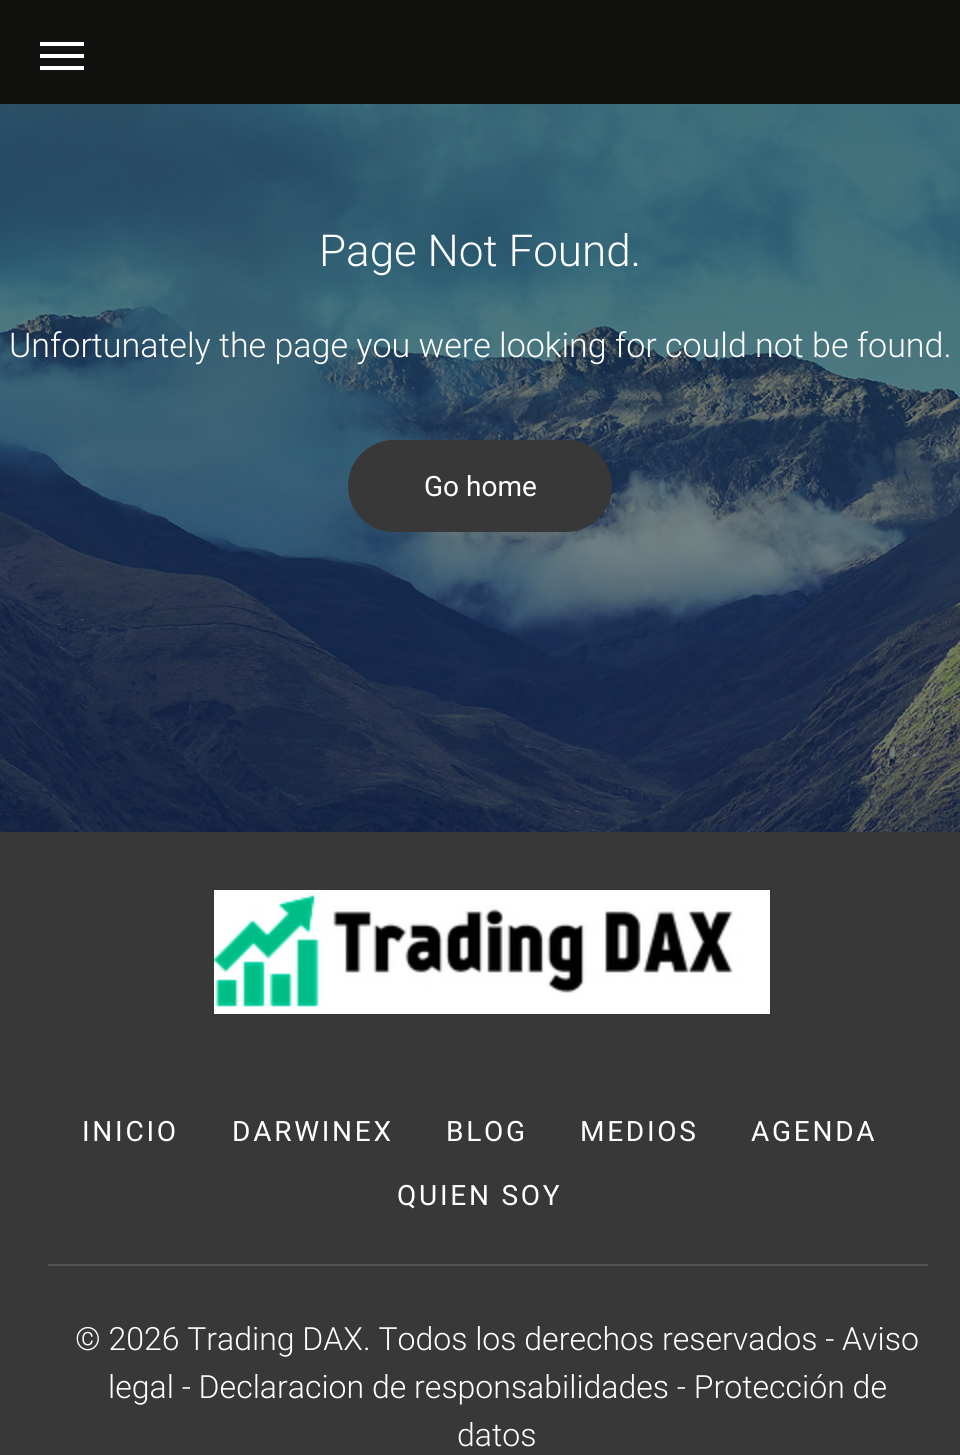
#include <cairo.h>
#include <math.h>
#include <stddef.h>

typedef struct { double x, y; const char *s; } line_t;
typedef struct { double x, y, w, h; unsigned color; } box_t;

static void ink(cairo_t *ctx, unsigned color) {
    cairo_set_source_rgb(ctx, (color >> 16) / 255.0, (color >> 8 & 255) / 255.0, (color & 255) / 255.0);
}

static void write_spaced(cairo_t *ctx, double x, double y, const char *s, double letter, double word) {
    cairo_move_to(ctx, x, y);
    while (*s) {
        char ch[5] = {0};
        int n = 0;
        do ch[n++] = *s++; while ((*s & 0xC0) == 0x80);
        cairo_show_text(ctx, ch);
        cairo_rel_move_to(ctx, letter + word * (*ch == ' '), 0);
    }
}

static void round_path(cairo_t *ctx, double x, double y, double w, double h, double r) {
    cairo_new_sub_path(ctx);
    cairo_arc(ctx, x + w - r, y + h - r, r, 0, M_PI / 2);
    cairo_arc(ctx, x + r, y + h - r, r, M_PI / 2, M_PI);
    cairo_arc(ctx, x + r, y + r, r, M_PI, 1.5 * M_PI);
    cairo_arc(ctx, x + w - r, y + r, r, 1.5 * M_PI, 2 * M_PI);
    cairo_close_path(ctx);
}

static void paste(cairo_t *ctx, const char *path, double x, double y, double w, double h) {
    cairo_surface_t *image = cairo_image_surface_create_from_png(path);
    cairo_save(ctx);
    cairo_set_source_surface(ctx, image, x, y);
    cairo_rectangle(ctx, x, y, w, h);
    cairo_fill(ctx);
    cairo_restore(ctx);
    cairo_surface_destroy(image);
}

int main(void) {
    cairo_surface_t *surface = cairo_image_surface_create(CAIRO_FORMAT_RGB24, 960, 1455);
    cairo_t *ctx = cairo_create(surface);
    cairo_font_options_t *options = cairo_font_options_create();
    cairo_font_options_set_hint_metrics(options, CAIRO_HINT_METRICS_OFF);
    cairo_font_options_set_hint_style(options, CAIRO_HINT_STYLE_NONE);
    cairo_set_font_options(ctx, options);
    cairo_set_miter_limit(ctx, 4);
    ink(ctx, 0xFFFFFF);
    cairo_paint(ctx);
    {
        static const box_t items[] = {
            {0, 0, 960, 104, 0x111110},
            {40, 54, 44, 4, 0xFFFFFF},
            {40, 42, 44, 4, 0xFFFFFF},
            {40, 66, 44, 4, 0xFFFFFF},
        };
        for (size_t i = 0; i < sizeof items / sizeof *items; i++) {
            ink(ctx, items[i].color);
            cairo_rectangle(ctx, items[i].x, items[i].y, items[i].w, items[i].h);
            cairo_fill(ctx);
        }
    }
    paste(ctx, "media/1.png", 0, 104, 960, 728);
    cairo_select_font_face(ctx, "Roboto Light", CAIRO_FONT_SLANT_NORMAL, CAIRO_FONT_WEIGHT_NORMAL);
    cairo_set_font_size(ctx, 44);
    cairo_move_to(ctx, 319, 266);
    cairo_show_text(ctx, "Page Not Found.");
    cairo_set_font_size(ctx, 34);
    cairo_move_to(ctx, 9, 357);
    cairo_show_text(ctx, "Unfortunately the page you were looking for could not be found.");
    ink(ctx, 0x383838);
    round_path(ctx, 348, 440, 264, 92, 46);
    cairo_fill(ctx);
    cairo_select_font_face(ctx, "Roboto", CAIRO_FONT_SLANT_NORMAL, CAIRO_FONT_WEIGHT_NORMAL);
    cairo_set_font_size(ctx, 28);
    ink(ctx, 0xFFFFFF);
    cairo_move_to(ctx, 424, 496);
    cairo_show_text(ctx, "Go home");
    ink(ctx, 0x383838);
    cairo_rectangle(ctx, 0, 832, 960, 623);
    cairo_fill(ctx);
    paste(ctx, "media/2.png", 214, 890, 556, 124);
    ink(ctx, 0xFFFFFF);
    {
        static const line_t items[] = {
            {82, 1141, "INICIO"},
            {232, 1141, "DARWINEX"},
            {446, 1141, "BLOG"},
            {580, 1141, "MEDIOS"},
            {751, 1141, "AGENDA"},
            {397, 1205, "QUIEN SOY"},
        };
        for (size_t i = 0; i < sizeof items / sizeof *items; i++) {
            write_spaced(ctx, items[i].x, items[i].y, items[i].s, 2.75, 0);
        }
    }
    ink(ctx, 0x525253);
    cairo_rectangle(ctx, 48, 1264, 880, 2);
    cairo_fill(ctx);
    cairo_select_font_face(ctx, "Roboto Light", CAIRO_FONT_SLANT_NORMAL, CAIRO_FONT_WEIGHT_NORMAL);
    cairo_set_font_size(ctx, 32);
    ink(ctx, 0xFFFFFF);
    {
        static const line_t items[] = {
            {75, 1350, "© 2026 Trading DAX. Todos los derechos reservados - Aviso"},
            {108, 1398, "legal - Declaracion de responsabilidades - Protección de"},
            {457, 1446, "datos"},
        };
        for (size_t i = 0; i < sizeof items / sizeof *items; i++) {
            cairo_move_to(ctx, items[i].x, items[i].y);
            cairo_show_text(ctx, items[i].s);
        }
    }
    cairo_surface_write_to_png(surface, "image.png");
    cairo_font_options_destroy(options);
    cairo_destroy(ctx);
    cairo_surface_destroy(surface);
    return 0;
}
